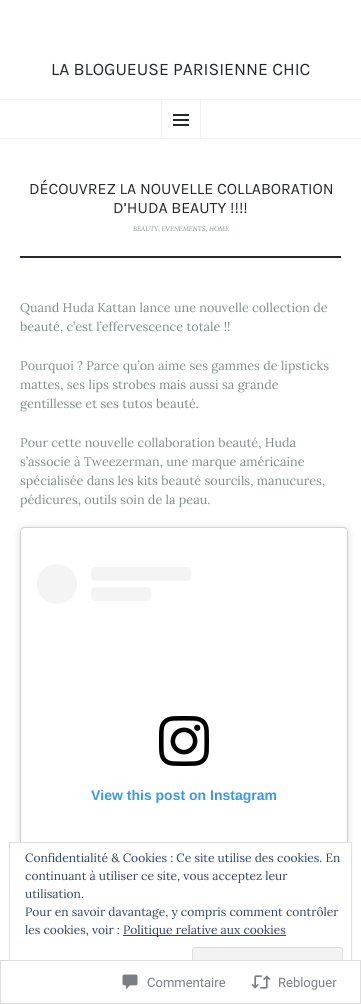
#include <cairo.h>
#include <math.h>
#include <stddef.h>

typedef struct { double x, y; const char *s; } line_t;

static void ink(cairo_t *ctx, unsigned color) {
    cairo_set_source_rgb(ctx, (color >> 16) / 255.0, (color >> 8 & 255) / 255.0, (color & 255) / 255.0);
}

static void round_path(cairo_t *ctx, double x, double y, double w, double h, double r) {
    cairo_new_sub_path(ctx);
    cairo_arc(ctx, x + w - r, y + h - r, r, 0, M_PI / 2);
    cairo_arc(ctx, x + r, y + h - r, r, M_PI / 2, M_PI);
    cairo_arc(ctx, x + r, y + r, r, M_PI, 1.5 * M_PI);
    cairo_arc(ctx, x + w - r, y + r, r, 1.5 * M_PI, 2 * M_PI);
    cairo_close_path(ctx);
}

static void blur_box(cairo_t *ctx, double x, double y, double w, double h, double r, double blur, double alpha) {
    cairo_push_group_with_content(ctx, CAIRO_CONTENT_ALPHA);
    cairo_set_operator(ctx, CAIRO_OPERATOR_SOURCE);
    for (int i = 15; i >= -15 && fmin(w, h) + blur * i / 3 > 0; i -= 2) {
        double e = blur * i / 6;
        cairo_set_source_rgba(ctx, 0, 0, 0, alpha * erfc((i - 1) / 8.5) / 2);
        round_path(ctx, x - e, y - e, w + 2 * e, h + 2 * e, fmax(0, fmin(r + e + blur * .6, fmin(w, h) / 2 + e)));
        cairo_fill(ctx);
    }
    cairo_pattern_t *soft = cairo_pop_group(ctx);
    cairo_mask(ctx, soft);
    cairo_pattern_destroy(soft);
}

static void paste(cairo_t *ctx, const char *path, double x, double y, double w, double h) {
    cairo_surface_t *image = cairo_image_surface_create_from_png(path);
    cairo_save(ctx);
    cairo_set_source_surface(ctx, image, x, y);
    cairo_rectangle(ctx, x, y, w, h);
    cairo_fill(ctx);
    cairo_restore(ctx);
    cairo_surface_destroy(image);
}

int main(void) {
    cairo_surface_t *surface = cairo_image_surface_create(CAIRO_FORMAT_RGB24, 361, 1004);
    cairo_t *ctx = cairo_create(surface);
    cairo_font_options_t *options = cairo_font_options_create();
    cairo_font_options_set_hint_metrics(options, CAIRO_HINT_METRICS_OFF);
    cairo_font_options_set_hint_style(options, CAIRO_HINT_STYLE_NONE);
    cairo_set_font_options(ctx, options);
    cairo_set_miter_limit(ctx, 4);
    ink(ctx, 0xFFFFFF);
    cairo_paint(ctx);
    cairo_select_font_face(ctx, "Karla", CAIRO_FONT_SLANT_NORMAL, CAIRO_FONT_WEIGHT_NORMAL);
    cairo_set_font_size(ctx, 17.6);
    ink(ctx, 0x24282D);
    cairo_move_to(ctx, 51, 75);
    cairo_show_text(ctx, "LA BLOGUEUSE PARISIENNE CHIC");
    ink(ctx, 0xF1F2F3);
    cairo_rectangle(ctx, 0, 99, 361, 1);
    cairo_fill(ctx);
    cairo_rectangle(ctx, 0, 138, 361, 1);
    cairo_fill(ctx);
    cairo_rectangle(ctx, 161.5, 99.5, 39, 39);
    cairo_set_line_width(ctx, 1);
    cairo_stroke(ctx);
    paste(ctx, "media/1.png", 173, 114, 16, 12);
    cairo_set_font_size(ctx, 15.9);
    ink(ctx, 0x24282D);
    cairo_move_to(ctx, 29, 194);
    cairo_show_text(ctx, "DÉCOUVREZ LA NOUVELLE COLLABORATION");
    cairo_move_to(ctx, 113, 213);
    cairo_show_text(ctx, "D’HUDA BEAUTY !!!!");
    cairo_select_font_face(ctx, "Lora", CAIRO_FONT_SLANT_ITALIC, CAIRO_FONT_WEIGHT_NORMAL);
    cairo_set_font_size(ctx, 6.5);
    ink(ctx, 0x7F8D8C);
    cairo_move_to(ctx, 133, 231);
    cairo_show_text(ctx, "BEAUTY, EVENEMENTS, HOME");
    ink(ctx, 0x24282D);
    cairo_rectangle(ctx, 20, 256, 321, 2);
    cairo_fill(ctx);
    cairo_select_font_face(ctx, "Lora", CAIRO_FONT_SLANT_NORMAL, CAIRO_FONT_WEIGHT_NORMAL);
    cairo_set_font_size(ctx, 12.6);
    ink(ctx, 0x7F8D8C);
    {
        static const line_t items[] = {
            {20, 312, "Quand Huda Kattan lance une nouvelle collection de"},
            {20, 331, "beauté, c’est l’effervescence totale !!"},
            {20, 370, "Pourquoi ? Parce qu’on aime ses gammes de lipsticks"},
            {20, 389, "mattes, ses lips strobes mais aussi sa grande"},
            {20, 408, "gentillesse et ses tutos beauté."},
            {20, 447, "Pour cette nouvelle collaboration beauté, Huda"},
            {20, 466, "s’associe à Tweezerman, une marque américaine"},
            {20, 485, "spécialisée dans les kits beauté sourcils, manucures,"},
            {20, 504, "pédicures, outils soin de la peau."},
        };
        for (size_t i = 0; i < sizeof items / sizeof *items; i++) {
            cairo_move_to(ctx, items[i].x, items[i].y);
            cairo_show_text(ctx, items[i].s);
        }
    }
    ink(ctx, 0x000000);
    blur_box(ctx, 21, 529, 326, 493, 3, 5, 0.15);
    blur_box(ctx, 21, 528, 326, 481, 3, 0.5, 0.5);
    ink(ctx, 0xFFFFFF);
    round_path(ctx, 21, 528, 326, 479, 3);
    cairo_fill(ctx);
    ink(ctx, 0xF4F4F4);
    cairo_arc(ctx, 57, 584, 20, 0, 2 * M_PI);
    cairo_fill(ctx);
    round_path(ctx, 91, 567, 100, 14, 4);
    cairo_fill(ctx);
    round_path(ctx, 91, 587, 60, 14, 4);
    cairo_fill(ctx);
    paste(ctx, "media/2.png", 159, 716, 50, 50);
    cairo_select_font_face(ctx, "Liberation Sans", CAIRO_FONT_SLANT_NORMAL, CAIRO_FONT_WEIGHT_BOLD);
    cairo_set_font_size(ctx, 14);
    ink(ctx, 0x3897F0);
    cairo_move_to(ctx, 91, 800);
    cairo_show_text(ctx, "View this post on Instagram");
    ink(ctx, 0xFFFFFF);
    cairo_rectangle(ctx, 14, 843, 337, 151);
    cairo_fill(ctx);
    cairo_rectangle(ctx, 9.5, 842.5, 342, 152);
    ink(ctx, 0xDEDEDE);
    cairo_stroke(ctx);
    cairo_select_font_face(ctx, "Lora", CAIRO_FONT_SLANT_NORMAL, CAIRO_FONT_WEIGHT_NORMAL);
    cairo_set_font_size(ctx, 12);
    ink(ctx, 0x2E4467);
    {
        static const line_t items[] = {
            {25, 862, "Confidentialité & Cookies : Ce site utilise des cookies. En"},
            {25, 880, "continuant à utiliser ce site, vous acceptez leur"},
            {25, 898, "utilisation."},
            {25, 916, "Pour en savoir davantage, y compris comment contrôler"},
            {25, 934, "les cookies, voir :"},
        };
        for (size_t i = 0; i < sizeof items / sizeof *items; i++) {
            cairo_move_to(ctx, items[i].x, items[i].y);
            cairo_show_text(ctx, items[i].s);
        }
    }
    cairo_rectangle(ctx, 123, 935, 163, 1);
    cairo_fill(ctx);
    cairo_move_to(ctx, 123, 934);
    cairo_show_text(ctx, "Politique relative aux cookies");
    ink(ctx, 0xF3F3F3);
    round_path(ctx, 192.5, 947.5, 150, 38, 2.5);
    cairo_fill_preserve(ctx);
    ink(ctx, 0xDEDEDE);
    cairo_stroke(ctx);
    cairo_set_source_rgba(ctx, 1, 1, 1, 0.98);
    cairo_rectangle(ctx, 9, 960, 345, 44);
    cairo_fill(ctx);
    cairo_rectangle(ctx, 0.5, 960.5, 360, 43);
    cairo_set_source_rgba(ctx, 0.863, 0.863, 0.871, 0.98);
    cairo_stroke(ctx);
    paste(ctx, "media/3.png", 122, 974, 16, 16);
    cairo_select_font_face(ctx, "Roboto", CAIRO_FONT_SLANT_NORMAL, CAIRO_FONT_WEIGHT_NORMAL);
    cairo_set_font_size(ctx, 13);
    ink(ctx, 0x7B7F84);
    cairo_move_to(ctx, 147, 987);
    cairo_show_text(ctx, "Commentaire");
    paste(ctx, "media/4.png", 251, 975, 20, 14);
    cairo_move_to(ctx, 278, 987);
    cairo_show_text(ctx, "Rebloguer");
    cairo_surface_write_to_png(surface, "image.png");
    cairo_font_options_destroy(options);
    cairo_destroy(ctx);
    cairo_surface_destroy(surface);
    return 0;
}
